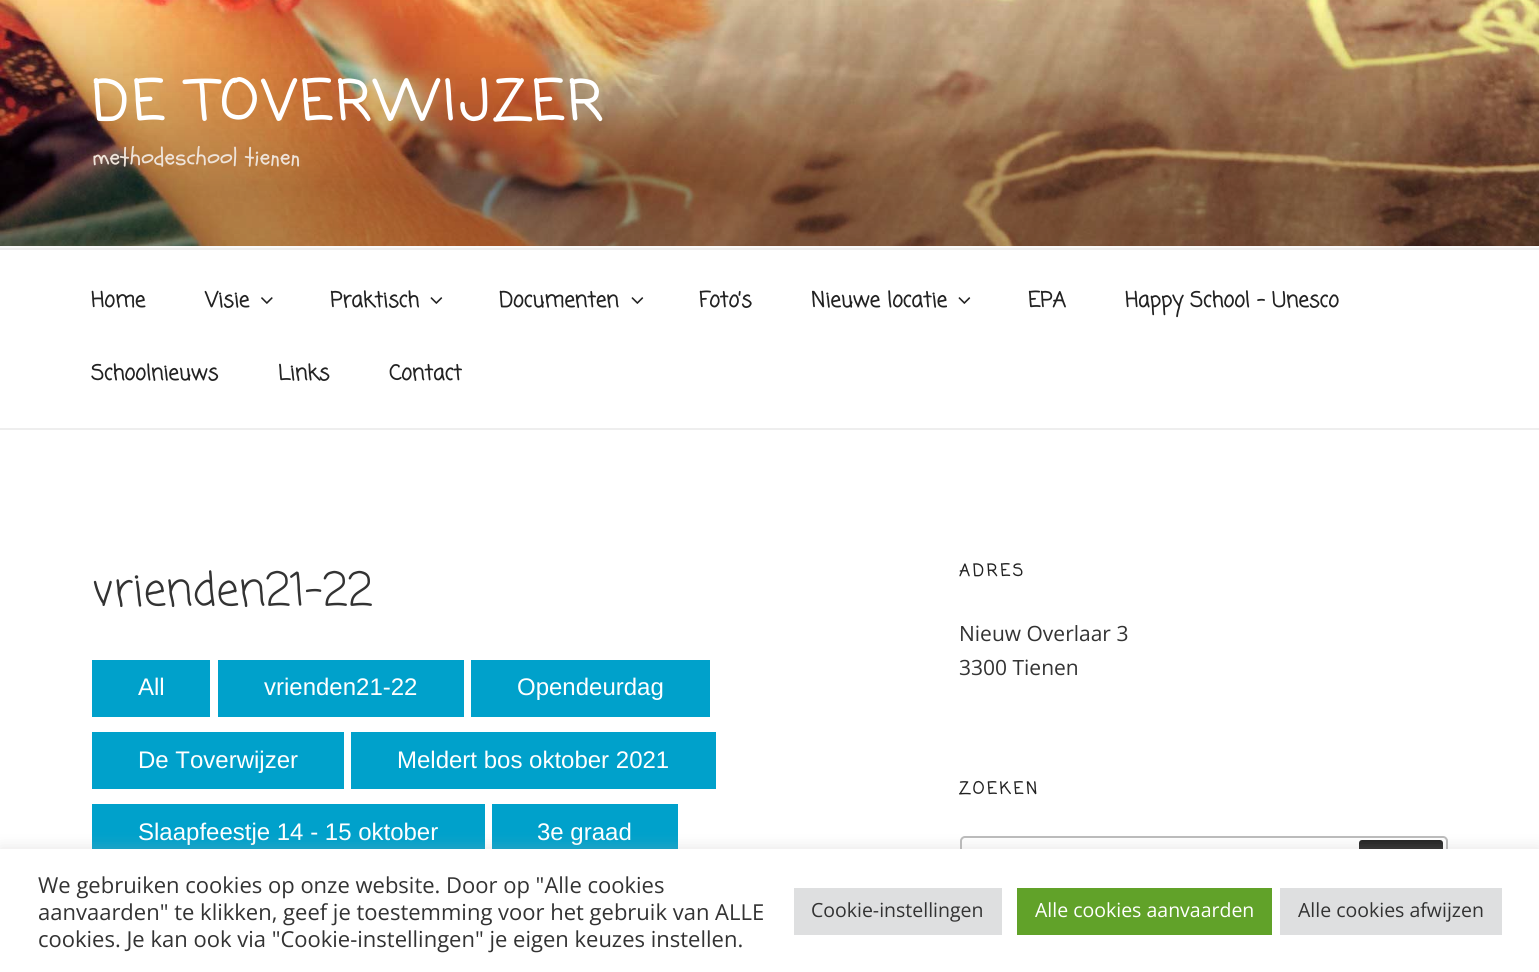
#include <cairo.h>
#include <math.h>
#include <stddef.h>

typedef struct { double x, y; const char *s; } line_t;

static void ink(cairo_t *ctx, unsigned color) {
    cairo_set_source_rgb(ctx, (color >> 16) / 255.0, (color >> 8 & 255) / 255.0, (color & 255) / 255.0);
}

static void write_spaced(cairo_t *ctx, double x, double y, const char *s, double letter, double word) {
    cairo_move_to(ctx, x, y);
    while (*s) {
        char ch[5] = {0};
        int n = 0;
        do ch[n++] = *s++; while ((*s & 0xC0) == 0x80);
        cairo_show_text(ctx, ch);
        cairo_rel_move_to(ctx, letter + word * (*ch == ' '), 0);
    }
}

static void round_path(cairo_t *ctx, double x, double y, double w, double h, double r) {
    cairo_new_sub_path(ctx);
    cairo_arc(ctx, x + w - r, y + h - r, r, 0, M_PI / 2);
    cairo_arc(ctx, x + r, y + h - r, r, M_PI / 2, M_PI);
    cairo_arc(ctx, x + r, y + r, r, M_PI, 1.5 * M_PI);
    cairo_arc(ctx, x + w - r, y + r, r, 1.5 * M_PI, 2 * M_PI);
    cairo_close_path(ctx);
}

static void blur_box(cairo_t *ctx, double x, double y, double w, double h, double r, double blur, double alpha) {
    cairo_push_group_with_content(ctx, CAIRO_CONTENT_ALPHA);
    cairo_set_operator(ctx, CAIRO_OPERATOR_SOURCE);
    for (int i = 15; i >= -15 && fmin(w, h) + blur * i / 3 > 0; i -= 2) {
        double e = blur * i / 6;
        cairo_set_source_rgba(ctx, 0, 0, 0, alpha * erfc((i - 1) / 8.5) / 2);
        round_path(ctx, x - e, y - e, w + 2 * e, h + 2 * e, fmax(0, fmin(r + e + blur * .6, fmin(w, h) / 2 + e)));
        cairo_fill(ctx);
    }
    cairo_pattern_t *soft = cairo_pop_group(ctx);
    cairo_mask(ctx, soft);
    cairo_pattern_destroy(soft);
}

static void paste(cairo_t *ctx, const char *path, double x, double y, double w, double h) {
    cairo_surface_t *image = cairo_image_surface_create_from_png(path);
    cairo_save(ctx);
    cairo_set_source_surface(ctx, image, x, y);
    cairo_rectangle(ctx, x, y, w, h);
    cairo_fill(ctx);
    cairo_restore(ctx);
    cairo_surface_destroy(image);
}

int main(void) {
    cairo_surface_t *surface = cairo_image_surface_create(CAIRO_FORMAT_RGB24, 1539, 972);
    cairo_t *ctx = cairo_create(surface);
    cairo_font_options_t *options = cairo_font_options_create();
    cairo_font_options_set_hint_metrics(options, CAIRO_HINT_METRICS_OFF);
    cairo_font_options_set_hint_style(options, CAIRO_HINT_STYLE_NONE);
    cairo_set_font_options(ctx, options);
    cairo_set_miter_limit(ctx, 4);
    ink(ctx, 0xFFFFFF);
    cairo_paint(ctx);
    ink(ctx, 0xFAFAFA);
    cairo_rectangle(ctx, 0, 246, 1539, 2);
    cairo_fill(ctx);
    paste(ctx, "media/1.png", 0, 0, 1539, 246);
    cairo_select_font_face(ctx, "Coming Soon", CAIRO_FONT_SLANT_NORMAL, CAIRO_FONT_WEIGHT_BOLD);
    cairo_set_font_size(ctx, 54);
    ink(ctx, 0xFFFFFF);
    write_spaced(ctx, 92, 120, "DE TOVERWIJZER", 4.25, 0);
    cairo_select_font_face(ctx, "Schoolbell", CAIRO_FONT_SLANT_NORMAL, CAIRO_FONT_WEIGHT_NORMAL);
    cairo_set_font_size(ctx, 24);
    ink(ctx, 0xEEE3D9);
    cairo_move_to(ctx, 92, 165);
    cairo_show_text(ctx, "methodeschool tienen");
    ink(ctx, 0xEEEEEE);
    cairo_rectangle(ctx, 0, 248, 1539, 2);
    cairo_fill(ctx);
    cairo_rectangle(ctx, 0, 428, 1539, 2);
    cairo_fill(ctx);
    cairo_select_font_face(ctx, "Coming Soon", CAIRO_FONT_SLANT_NORMAL, CAIRO_FONT_WEIGHT_BOLD);
    cairo_set_font_size(ctx, 21);
    ink(ctx, 0x222222);
    cairo_move_to(ctx, 91, 307);
    cairo_show_text(ctx, "Home");
    cairo_move_to(ctx, 205, 307);
    cairo_show_text(ctx, "Visie");
    paste(ctx, "media/2.png", 261, 297, 12, 7);
    cairo_move_to(ctx, 330, 307);
    cairo_show_text(ctx, "Praktisch");
    paste(ctx, "media/3.png", 430, 297, 13, 7);
    cairo_move_to(ctx, 499, 307);
    cairo_show_text(ctx, "Documenten");
    paste(ctx, "media/3.png", 631, 297, 13, 7);
    cairo_move_to(ctx, 699, 307);
    cairo_show_text(ctx, "Foto’s");
    cairo_move_to(ctx, 811, 307);
    cairo_show_text(ctx, "Nieuwe locatie");
    paste(ctx, "media/3.png", 958, 297, 13, 7);
    {
        static const line_t items[] = {
            {1028, 307, "EPA"},
            {1125, 307, "Happy School – Unesco"},
            {91, 380, "Schoolnieuws"},
            {278, 380, "Links"},
            {389, 380, "Contact"},
        };
        for (size_t i = 0; i < sizeof items / sizeof *items; i++) {
            cairo_move_to(ctx, items[i].x, items[i].y);
            cairo_show_text(ctx, items[i].s);
        }
    }
    cairo_select_font_face(ctx, "Coming Soon", CAIRO_FONT_SLANT_NORMAL, CAIRO_FONT_WEIGHT_NORMAL);
    cairo_set_font_size(ctx, 45);
    ink(ctx, 0x333333);
    cairo_move_to(ctx, 92, 605);
    cairo_show_text(ctx, "vrienden21-22");
    ink(ctx, 0x00A1CB);
    cairo_rectangle(ctx, 92, 660, 118, 57);
    cairo_fill(ctx);
    cairo_select_font_face(ctx, "Liberation Sans", CAIRO_FONT_SLANT_NORMAL, CAIRO_FONT_WEIGHT_NORMAL);
    cairo_set_font_size(ctx, 24);
    ink(ctx, 0xFFFFFF);
    cairo_move_to(ctx, 138, 695);
    cairo_show_text(ctx, "All");
    ink(ctx, 0x00A1CB);
    cairo_rectangle(ctx, 218, 660, 246, 57);
    cairo_fill(ctx);
    ink(ctx, 0xFFFFFF);
    cairo_move_to(ctx, 264, 695);
    cairo_show_text(ctx, "vrienden21-22");
    ink(ctx, 0x00A1CB);
    cairo_rectangle(ctx, 471, 660, 239, 57);
    cairo_fill(ctx);
    ink(ctx, 0xFFFFFF);
    cairo_move_to(ctx, 517, 695);
    cairo_show_text(ctx, "Opendeurdag");
    ink(ctx, 0x00A1CB);
    cairo_rectangle(ctx, 92, 732, 252, 57);
    cairo_fill(ctx);
    ink(ctx, 0xFFFFFF);
    cairo_move_to(ctx, 138, 768);
    cairo_show_text(ctx, "De Toverwijzer");
    ink(ctx, 0x00A1CB);
    cairo_rectangle(ctx, 351, 732, 365, 57);
    cairo_fill(ctx);
    ink(ctx, 0xFFFFFF);
    cairo_move_to(ctx, 397, 768);
    cairo_show_text(ctx, "Meldert bos oktober 2021");
    ink(ctx, 0x00A1CB);
    cairo_rectangle(ctx, 92, 804, 393, 45);
    cairo_fill(ctx);
    ink(ctx, 0xFFFFFF);
    cairo_move_to(ctx, 138, 840);
    cairo_show_text(ctx, "Slaapfeestje 14 - 15 oktober");
    ink(ctx, 0x00A1CB);
    cairo_rectangle(ctx, 492, 804, 186, 45);
    cairo_fill(ctx);
    ink(ctx, 0xFFFFFF);
    cairo_move_to(ctx, 537, 840);
    cairo_show_text(ctx, "3e graad");
    cairo_select_font_face(ctx, "Coming Soon", CAIRO_FONT_SLANT_NORMAL, CAIRO_FONT_WEIGHT_BOLD);
    cairo_set_font_size(ctx, 16.5);
    ink(ctx, 0x222222);
    write_spaced(ctx, 959, 576, "ADRES", 3, 0);
    cairo_select_font_face(ctx, "Open Sans", CAIRO_FONT_SLANT_NORMAL, CAIRO_FONT_WEIGHT_NORMAL);
    cairo_set_font_size(ctx, 21);
    ink(ctx, 0x333333);
    cairo_move_to(ctx, 959, 641);
    cairo_show_text(ctx, "Nieuw Overlaar 3");
    cairo_move_to(ctx, 959, 675);
    cairo_show_text(ctx, "3300 Tienen");
    cairo_select_font_face(ctx, "Coming Soon", CAIRO_FONT_SLANT_NORMAL, CAIRO_FONT_WEIGHT_BOLD);
    cairo_set_font_size(ctx, 16.5);
    ink(ctx, 0x222222);
    write_spaced(ctx, 959, 794, "ZOEKEN", 3, 0);
    round_path(ctx, 961, 837, 486, 70, 4);
    ink(ctx, 0xBBBBBB);
    cairo_stroke(ctx);
    ink(ctx, 0x222222);
    round_path(ctx, 1359, 840, 84, 63, 3);
    cairo_fill(ctx);
    ink(ctx, 0xACABAB);
    blur_box(ctx, 0, 848, 1539, 123, 0, 7.5, 0.3);
    ink(ctx, 0xFFFFFF);
    cairo_rectangle(ctx, 0, 849, 1539, 123);
    cairo_fill(ctx);
    cairo_select_font_face(ctx, "Open Sans", CAIRO_FONT_SLANT_NORMAL, CAIRO_FONT_WEIGHT_NORMAL);
    cairo_set_font_size(ctx, 22);
    ink(ctx, 0x333333);
    {
        static const line_t items[] = {
            {38, 893, "We gebruiken cookies op onze website. Door op \"Alle cookies"},
            {38, 920, "aanvaarden\" te klikken, geef je toestemming voor het gebruik van ALLE"},
            {38, 947, "cookies. Je kan ook via \"Cookie-instellingen\" je eigen keuzes instellen."},
        };
        for (size_t i = 0; i < sizeof items / sizeof *items; i++) {
            cairo_move_to(ctx, items[i].x, items[i].y);
            cairo_show_text(ctx, items[i].s);
        }
    }
    ink(ctx, 0xDEDFE0);
    cairo_rectangle(ctx, 794, 888, 208, 47);
    cairo_fill(ctx);
    cairo_set_font_size(ctx, 19.5);
    ink(ctx, 0x333333);
    cairo_move_to(ctx, 811, 917);
    cairo_show_text(ctx, "Cookie-instellingen");
    ink(ctx, 0x61A229);
    cairo_rectangle(ctx, 1017, 888, 255, 47);
    cairo_fill(ctx);
    ink(ctx, 0xFFFFFF);
    cairo_move_to(ctx, 1035, 917);
    cairo_show_text(ctx, "Alle cookies aanvaarden");
    ink(ctx, 0xDEDFE0);
    cairo_rectangle(ctx, 1280, 888, 222, 47);
    cairo_fill(ctx);
    ink(ctx, 0x333333);
    cairo_move_to(ctx, 1298, 917);
    cairo_show_text(ctx, "Alle cookies afwijzen");
    cairo_surface_write_to_png(surface, "image.png");
    cairo_font_options_destroy(options);
    cairo_destroy(ctx);
    cairo_surface_destroy(surface);
    return 0;
}
